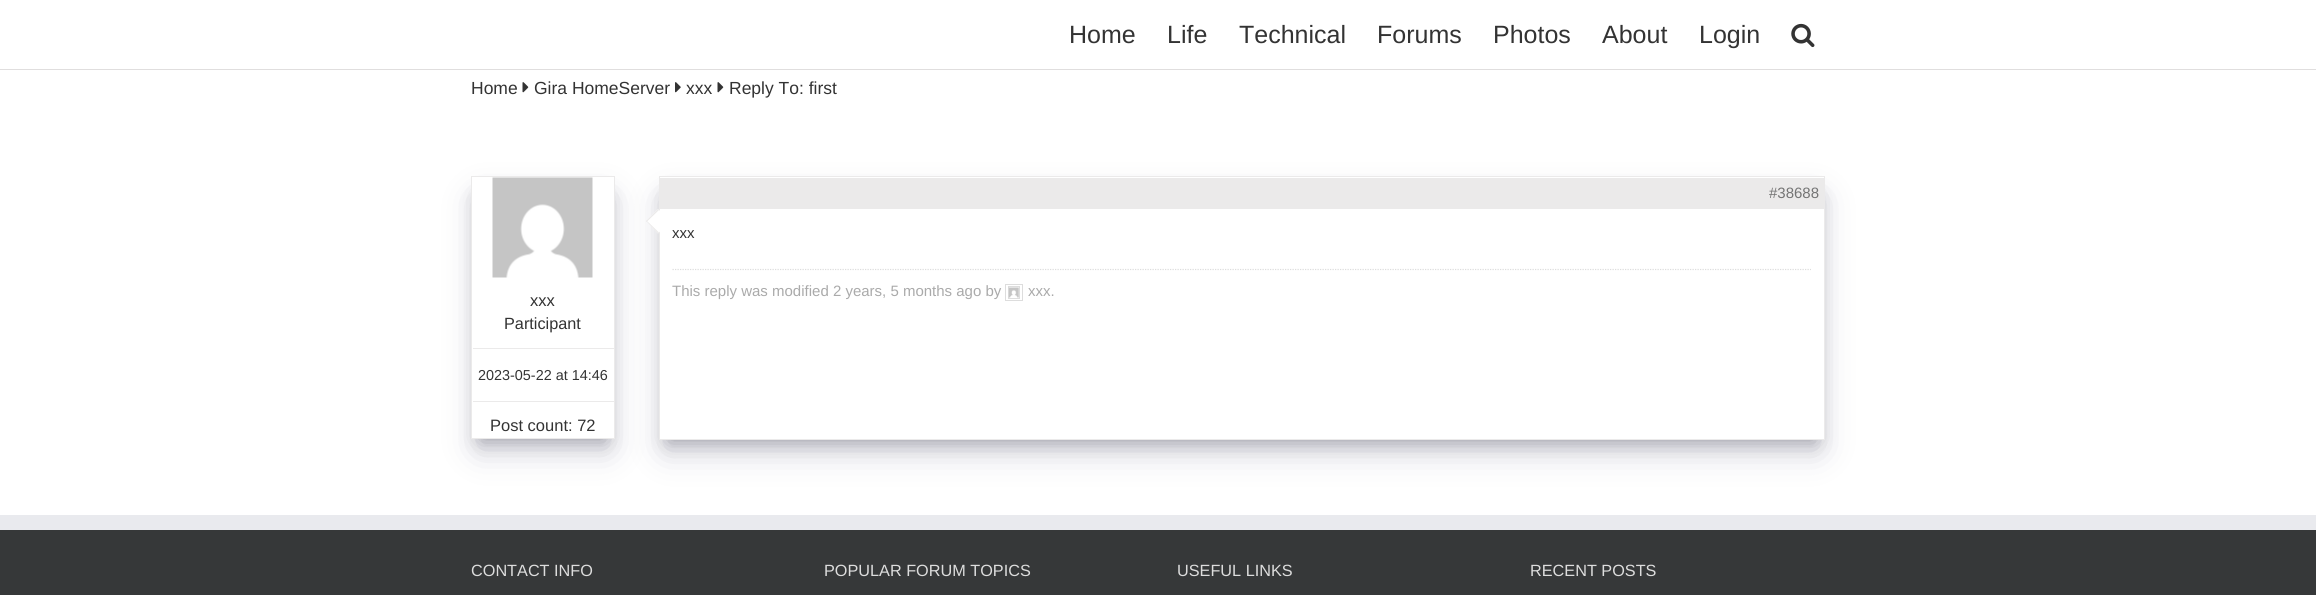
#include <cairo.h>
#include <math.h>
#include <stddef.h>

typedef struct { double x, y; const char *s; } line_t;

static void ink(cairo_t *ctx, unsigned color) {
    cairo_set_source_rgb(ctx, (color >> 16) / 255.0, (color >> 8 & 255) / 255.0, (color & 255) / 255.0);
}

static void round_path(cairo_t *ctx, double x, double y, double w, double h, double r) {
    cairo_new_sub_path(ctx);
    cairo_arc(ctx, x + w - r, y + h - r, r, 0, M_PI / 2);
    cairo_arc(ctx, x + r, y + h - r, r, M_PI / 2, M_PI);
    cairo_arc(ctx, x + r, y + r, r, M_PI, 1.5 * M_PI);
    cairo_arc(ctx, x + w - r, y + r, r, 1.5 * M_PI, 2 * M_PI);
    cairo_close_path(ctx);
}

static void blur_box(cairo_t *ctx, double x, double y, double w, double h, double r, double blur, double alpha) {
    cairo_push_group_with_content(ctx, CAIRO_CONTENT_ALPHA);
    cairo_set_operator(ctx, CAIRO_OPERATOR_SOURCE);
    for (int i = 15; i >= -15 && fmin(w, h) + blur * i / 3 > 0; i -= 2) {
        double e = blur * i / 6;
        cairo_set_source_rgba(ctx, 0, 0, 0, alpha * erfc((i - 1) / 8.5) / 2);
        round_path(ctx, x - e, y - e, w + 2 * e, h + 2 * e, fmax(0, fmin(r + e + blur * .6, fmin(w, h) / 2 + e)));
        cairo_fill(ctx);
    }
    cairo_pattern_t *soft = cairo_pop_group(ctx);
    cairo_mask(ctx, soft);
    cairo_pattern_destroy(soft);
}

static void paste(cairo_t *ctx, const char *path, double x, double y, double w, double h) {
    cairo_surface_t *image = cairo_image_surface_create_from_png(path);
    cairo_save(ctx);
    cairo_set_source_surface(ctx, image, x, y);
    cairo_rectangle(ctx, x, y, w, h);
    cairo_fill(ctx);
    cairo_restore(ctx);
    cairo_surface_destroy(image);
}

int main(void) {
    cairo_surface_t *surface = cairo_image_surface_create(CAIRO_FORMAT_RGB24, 2316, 595);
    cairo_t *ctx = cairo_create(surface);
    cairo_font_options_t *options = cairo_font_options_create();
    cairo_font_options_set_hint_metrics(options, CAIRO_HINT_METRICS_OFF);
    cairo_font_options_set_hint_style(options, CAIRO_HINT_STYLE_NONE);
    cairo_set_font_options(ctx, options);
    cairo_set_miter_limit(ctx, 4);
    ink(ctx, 0xFFFFFF);
    cairo_paint(ctx);
    ink(ctx, 0xE0DEDE);
    cairo_rectangle(ctx, 0, 69, 2316, 1);
    cairo_fill(ctx);
    cairo_select_font_face(ctx, "Liberation Sans", CAIRO_FONT_SLANT_NORMAL, CAIRO_FONT_WEIGHT_NORMAL);
    cairo_set_font_size(ctx, 25);
    ink(ctx, 0x333333);
    {
        static const line_t items[] = {
            {1069, 43, "Home"},
            {1167, 43, "Life"},
            {1239, 43, "Technical"},
            {1377, 43, "Forums"},
            {1493, 43, "Photos"},
            {1602, 43, "About"},
            {1699, 43, "Login"},
        };
        for (size_t i = 0; i < sizeof items / sizeof *items; i++) {
            cairo_move_to(ctx, items[i].x, items[i].y);
            cairo_show_text(ctx, items[i].s);
        }
    }
    paste(ctx, "media/1.png", 1791, 23, 24, 25);
    cairo_set_font_size(ctx, 17.5);
    cairo_move_to(ctx, 471, 94);
    cairo_show_text(ctx, "Home");
    paste(ctx, "media/2.png", 522, 82, 7, 11);
    cairo_move_to(ctx, 534, 94);
    cairo_show_text(ctx, "Gira HomeServer");
    paste(ctx, "media/3.png", 675, 82, 6, 11);
    cairo_move_to(ctx, 686, 94);
    cairo_show_text(ctx, "xxx");
    paste(ctx, "media/2.png", 717, 82, 7, 11);
    cairo_move_to(ctx, 729, 94);
    cairo_show_text(ctx, "Reply To: first");
    cairo_save(ctx);
    cairo_set_fill_rule(ctx, CAIRO_FILL_RULE_EVEN_ODD);
    cairo_new_path(ctx);
    cairo_move_to(ctx, 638, 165);
    cairo_line_to(ctx, 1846, 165);
    cairo_line_to(ctx, 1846, 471);
    cairo_line_to(ctx, 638, 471);
    cairo_close_path(ctx);
    cairo_move_to(ctx, 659, 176);
    cairo_line_to(ctx, 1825, 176);
    cairo_line_to(ctx, 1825, 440);
    cairo_line_to(ctx, 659, 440);
    cairo_close_path(ctx);
    cairo_clip(ctx);
    ink(ctx, 0x000000);
    blur_box(ctx, 669, 196, 1146, 244, 0, 10, 0.3);
    cairo_restore(ctx);
    cairo_save(ctx);
    cairo_set_fill_rule(ctx, CAIRO_FILL_RULE_EVEN_ODD);
    cairo_new_path(ctx);
    cairo_move_to(ctx, 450, 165);
    cairo_line_to(ctx, 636, 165);
    cairo_line_to(ctx, 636, 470);
    cairo_line_to(ctx, 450, 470);
    cairo_close_path(ctx);
    cairo_move_to(ctx, 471, 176);
    cairo_line_to(ctx, 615, 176);
    cairo_line_to(ctx, 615, 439);
    cairo_line_to(ctx, 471, 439);
    cairo_close_path(ctx);
    cairo_clip(ctx);
    ink(ctx, 0x000000);
    blur_box(ctx, 481, 196, 124, 243, 0, 10, 0.3);
    cairo_restore(ctx);
    cairo_save(ctx);
    cairo_set_fill_rule(ctx, CAIRO_FILL_RULE_EVEN_ODD);
    cairo_new_path(ctx);
    cairo_move_to(ctx, 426, 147);
    cairo_line_to(ctx, 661, 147);
    cairo_line_to(ctx, 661, 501);
    cairo_line_to(ctx, 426, 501);
    cairo_close_path(ctx);
    cairo_move_to(ctx, 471, 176);
    cairo_line_to(ctx, 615, 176);
    cairo_line_to(ctx, 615, 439);
    cairo_line_to(ctx, 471, 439);
    cairo_close_path(ctx);
    cairo_clip(ctx);
    ink(ctx, 0x32325D);
    blur_box(ctx, 478, 199, 131, 250, 0, 17, 0.25);
    cairo_restore(ctx);
    cairo_rectangle(ctx, 471.5, 176.5, 143, 262);
    ink(ctx, 0xEBEAEA);
    cairo_set_line_width(ctx, 1);
    cairo_stroke(ctx);
    cairo_rectangle(ctx, 473, 348, 141, 1);
    cairo_fill(ctx);
    cairo_rectangle(ctx, 473, 401, 141, 1);
    cairo_fill(ctx);
    cairo_save(ctx);
    cairo_set_fill_rule(ctx, CAIRO_FILL_RULE_EVEN_ODD);
    cairo_new_path(ctx);
    cairo_move_to(ctx, 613, 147);
    cairo_line_to(ctx, 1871, 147);
    cairo_line_to(ctx, 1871, 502);
    cairo_line_to(ctx, 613, 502);
    cairo_close_path(ctx);
    cairo_move_to(ctx, 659, 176);
    cairo_line_to(ctx, 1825, 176);
    cairo_line_to(ctx, 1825, 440);
    cairo_line_to(ctx, 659, 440);
    cairo_close_path(ctx);
    cairo_clip(ctx);
    ink(ctx, 0x32325D);
    blur_box(ctx, 665, 199, 1154, 251, 0, 17, 0.25);
    cairo_restore(ctx);
    cairo_rectangle(ctx, 659.5, 176.5, 1165, 263);
    cairo_stroke(ctx);
    cairo_rectangle(ctx, 660, 178, 1164, 31);
    cairo_fill(ctx);
    cairo_set_font_size(ctx, 15);
    ink(ctx, 0x747474);
    cairo_move_to(ctx, 1769, 198);
    cairo_show_text(ctx, "#38688");
    ink(ctx, 0xFFFFFF);
    cairo_new_path(ctx);
    cairo_move_to(ctx, 658, 209);
    cairo_line_to(ctx, 670.5, 221);
    cairo_line_to(ctx, 658, 233.5);
    cairo_line_to(ctx, 646, 221);
    cairo_close_path(ctx);
    cairo_fill(ctx);
    ink(ctx, 0xEBEAEA);
    cairo_new_path(ctx);
    cairo_move_to(ctx, 646.5, 220.5);
    cairo_line_to(ctx, 659, 232.5);
    cairo_line_to(ctx, 658, 233.5);
    cairo_line_to(ctx, 646, 221);
    cairo_close_path(ctx);
    cairo_fill(ctx);
    cairo_new_path(ctx);
    cairo_move_to(ctx, 658, 209);
    cairo_line_to(ctx, 659, 210);
    cairo_line_to(ctx, 646.5, 222);
    cairo_line_to(ctx, 646, 221);
    cairo_close_path(ctx);
    cairo_fill(ctx);
    ink(ctx, 0x333333);
    cairo_move_to(ctx, 672, 238);
    cairo_show_text(ctx, "xxx");
    cairo_new_path(ctx);
    cairo_move_to(ctx, 672.5, 269.5);
    cairo_line_to(ctx, 1811, 269.5);
    ink(ctx, 0xDDDDDD);
    cairo_set_line_width(ctx, 1.2);
    cairo_set_dash(ctx, (double[]){1.25, 1.25}, 2, 0);
    cairo_stroke(ctx);
    ink(ctx, 0xAAAAAA);
    cairo_move_to(ctx, 672, 296);
    cairo_show_text(ctx, "This reply was modified 2 years, 5 months ago by");
    cairo_rectangle(ctx, 1005.5, 284.5, 17, 16);
    ink(ctx, 0xDDDDDD);
    cairo_set_line_width(ctx, 1);
    cairo_set_dash(ctx, NULL, 0, 0);
    cairo_stroke(ctx);
    cairo_rectangle(ctx, 1008.5, 286.5, 11, 12);
    cairo_stroke(ctx);
    paste(ctx, "media/4.png", 1008, 287, 11, 11);
    ink(ctx, 0xAAAAAA);
    cairo_move_to(ctx, 1028, 296);
    cairo_show_text(ctx, "xxx.");
    paste(ctx, "media/5.png", 492, 177, 101, 101);
    cairo_set_font_size(ctx, 16.5);
    ink(ctx, 0x333333);
    cairo_move_to(ctx, 530, 306);
    cairo_show_text(ctx, "xxx");
    cairo_set_font_size(ctx, 16.25);
    cairo_move_to(ctx, 504, 329);
    cairo_show_text(ctx, "Participant");
    cairo_set_font_size(ctx, 14.4);
    cairo_move_to(ctx, 478, 380);
    cairo_show_text(ctx, "2023-05-22 at 14:46");
    cairo_set_font_size(ctx, 16.5);
    cairo_move_to(ctx, 490, 431);
    cairo_show_text(ctx, "Post count: 72");
    ink(ctx, 0x363839);
    cairo_rectangle(ctx, 0, 530, 2316, 65);
    cairo_fill(ctx);
    ink(ctx, 0xE9EAEE);
    cairo_rectangle(ctx, 0, 515, 2316, 15);
    cairo_fill(ctx);
    cairo_set_font_size(ctx, 16.25);
    ink(ctx, 0xDDDDDD);
    {
        static const line_t items[] = {
            {471, 576, "CONTACT INFO"},
            {824, 576, "POPULAR FORUM TOPICS"},
            {1177, 576, "USEFUL LINKS"},
            {1530, 576, "RECENT POSTS"},
        };
        for (size_t i = 0; i < sizeof items / sizeof *items; i++) {
            cairo_move_to(ctx, items[i].x, items[i].y);
            cairo_show_text(ctx, items[i].s);
        }
    }
    cairo_surface_write_to_png(surface, "image.png");
    cairo_font_options_destroy(options);
    cairo_destroy(ctx);
    cairo_surface_destroy(surface);
    return 0;
}
